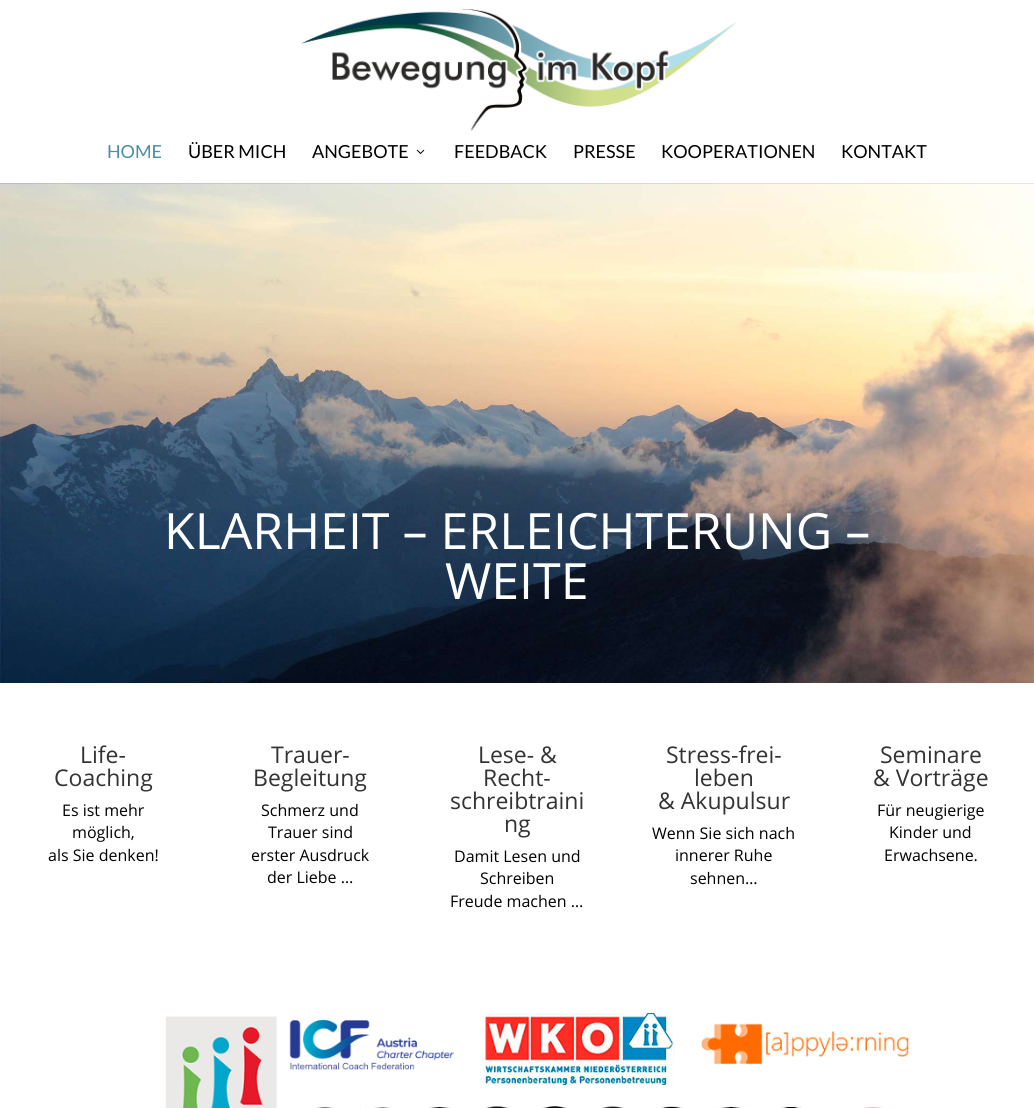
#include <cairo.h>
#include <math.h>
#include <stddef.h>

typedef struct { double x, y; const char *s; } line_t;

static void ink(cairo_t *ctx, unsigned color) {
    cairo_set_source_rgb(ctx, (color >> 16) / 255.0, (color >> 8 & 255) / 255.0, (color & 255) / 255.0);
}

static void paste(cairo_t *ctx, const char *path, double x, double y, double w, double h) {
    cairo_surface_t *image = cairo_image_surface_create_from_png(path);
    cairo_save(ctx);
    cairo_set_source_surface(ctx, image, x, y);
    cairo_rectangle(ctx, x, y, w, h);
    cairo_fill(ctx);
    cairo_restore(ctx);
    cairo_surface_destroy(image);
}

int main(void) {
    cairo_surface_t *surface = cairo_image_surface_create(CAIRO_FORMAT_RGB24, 1034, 1108);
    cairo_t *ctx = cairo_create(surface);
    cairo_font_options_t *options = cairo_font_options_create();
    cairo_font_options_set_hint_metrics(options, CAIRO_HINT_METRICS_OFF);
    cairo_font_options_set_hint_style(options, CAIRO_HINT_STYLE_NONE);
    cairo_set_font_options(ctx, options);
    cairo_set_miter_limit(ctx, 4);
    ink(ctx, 0xFFFFFF);
    cairo_paint(ctx);
    paste(ctx, "media/3.png", 0, 183, 1034, 500);
    cairo_set_source_rgba(ctx, 0, 0, 0, 0.1);
    cairo_rectangle(ctx, 0, 183, 1034, 1);
    cairo_fill(ctx);
    paste(ctx, "media/1.png", 301, 9, 436, 122);
    cairo_select_font_face(ctx, "Lato", CAIRO_FONT_SLANT_NORMAL, CAIRO_FONT_WEIGHT_NORMAL);
    cairo_set_font_size(ctx, 18);
    ink(ctx, 0x4B8EA2);
    cairo_move_to(ctx, 107, 158);
    cairo_show_text(ctx, "HOME");
    ink(ctx, 0x000000);
    cairo_move_to(ctx, 188, 158);
    cairo_show_text(ctx, "ÜBER MICH");
    cairo_move_to(ctx, 312, 158);
    cairo_show_text(ctx, "ANGEBOTE");
    paste(ctx, "media/2.png", 416, 149, 9, 5);
    {
        static const line_t items[] = {
            {454, 158, "FEEDBACK"},
            {573, 158, "PRESSE"},
            {661, 158, "KOOPERATIONEN"},
            {841, 158, "KONTAKT"},
        };
        for (size_t i = 0; i < sizeof items / sizeof *items; i++) {
            cairo_move_to(ctx, items[i].x, items[i].y);
            cairo_show_text(ctx, items[i].s);
        }
    }
    cairo_select_font_face(ctx, "Open Sans", CAIRO_FONT_SLANT_NORMAL, CAIRO_FONT_WEIGHT_NORMAL);
    cairo_set_font_size(ctx, 50);
    ink(ctx, 0xFFFFFF);
    cairo_move_to(ctx, 164, 549);
    cairo_show_text(ctx, "KLARHEIT – ERLEICHTERUNG –");
    cairo_move_to(ctx, 445, 599);
    cairo_show_text(ctx, "WEITE");
    cairo_set_font_size(ctx, 23);
    ink(ctx, 0x333333);
    cairo_move_to(ctx, 80, 763);
    cairo_show_text(ctx, "Life-");
    cairo_move_to(ctx, 54, 786);
    cairo_show_text(ctx, "Coaching");
    cairo_set_font_size(ctx, 16);
    ink(ctx, 0x000000);
    {
        static const line_t items[] = {
            {62, 816, "Es ist mehr"},
            {72, 838, "möglich,"},
            {48, 861, "als Sie denken!"},
        };
        for (size_t i = 0; i < sizeof items / sizeof *items; i++) {
            cairo_move_to(ctx, items[i].x, items[i].y);
            cairo_show_text(ctx, items[i].s);
        }
    }
    cairo_set_font_size(ctx, 23);
    ink(ctx, 0x333333);
    cairo_move_to(ctx, 271, 763);
    cairo_show_text(ctx, "Trauer-");
    cairo_move_to(ctx, 253, 786);
    cairo_show_text(ctx, "Begleitung");
    cairo_set_font_size(ctx, 16);
    ink(ctx, 0x000000);
    {
        static const line_t items[] = {
            {261, 816, "Schmerz und"},
            {268, 838, "Trauer sind"},
            {251, 861, "erster Ausdruck"},
            {267, 883, "der Liebe …"},
        };
        for (size_t i = 0; i < sizeof items / sizeof *items; i++) {
            cairo_move_to(ctx, items[i].x, items[i].y);
            cairo_show_text(ctx, items[i].s);
        }
    }
    cairo_set_font_size(ctx, 23);
    ink(ctx, 0x333333);
    {
        static const line_t items[] = {
            {478, 763, "Lese- &"},
            {483, 786, "Recht-"},
            {450, 809, "schreibtraini"},
            {504, 832, "ng"},
        };
        for (size_t i = 0; i < sizeof items / sizeof *items; i++) {
            cairo_move_to(ctx, items[i].x, items[i].y);
            cairo_show_text(ctx, items[i].s);
        }
    }
    cairo_set_font_size(ctx, 16);
    ink(ctx, 0x000000);
    {
        static const line_t items[] = {
            {454, 862, "Damit Lesen und"},
            {480, 884, "Schreiben"},
            {450, 907, "Freude machen …"},
        };
        for (size_t i = 0; i < sizeof items / sizeof *items; i++) {
            cairo_move_to(ctx, items[i].x, items[i].y);
            cairo_show_text(ctx, items[i].s);
        }
    }
    cairo_set_font_size(ctx, 23);
    ink(ctx, 0x333333);
    {
        static const line_t items[] = {
            {666, 763, "Stress-frei-"},
            {694, 786, "leben"},
            {658, 809, "& Akupulsur"},
        };
        for (size_t i = 0; i < sizeof items / sizeof *items; i++) {
            cairo_move_to(ctx, items[i].x, items[i].y);
            cairo_show_text(ctx, items[i].s);
        }
    }
    cairo_set_font_size(ctx, 16);
    ink(ctx, 0x000000);
    {
        static const line_t items[] = {
            {652, 839, "Wenn Sie sich nach"},
            {675, 861, "innerer Ruhe"},
            {690, 884, "sehnen…"},
        };
        for (size_t i = 0; i < sizeof items / sizeof *items; i++) {
            cairo_move_to(ctx, items[i].x, items[i].y);
            cairo_show_text(ctx, items[i].s);
        }
    }
    cairo_set_font_size(ctx, 23);
    ink(ctx, 0x333333);
    cairo_move_to(ctx, 880, 763);
    cairo_show_text(ctx, "Seminare");
    cairo_move_to(ctx, 873, 786);
    cairo_show_text(ctx, "& Vorträge");
    cairo_set_font_size(ctx, 16);
    ink(ctx, 0x000000);
    {
        static const line_t items[] = {
            {877, 816, "Für neugierige"},
            {889, 838, "Kinder und"},
            {884, 861, "Erwachsene."},
        };
        for (size_t i = 0; i < sizeof items / sizeof *items; i++) {
            cairo_move_to(ctx, items[i].x, items[i].y);
            cairo_show_text(ctx, items[i].s);
        }
    }
    paste(ctx, "media/4.png", 165, 1013, 744, 95);
    cairo_surface_write_to_png(surface, "image.png");
    cairo_font_options_destroy(options);
    cairo_destroy(ctx);
    cairo_surface_destroy(surface);
    return 0;
}
